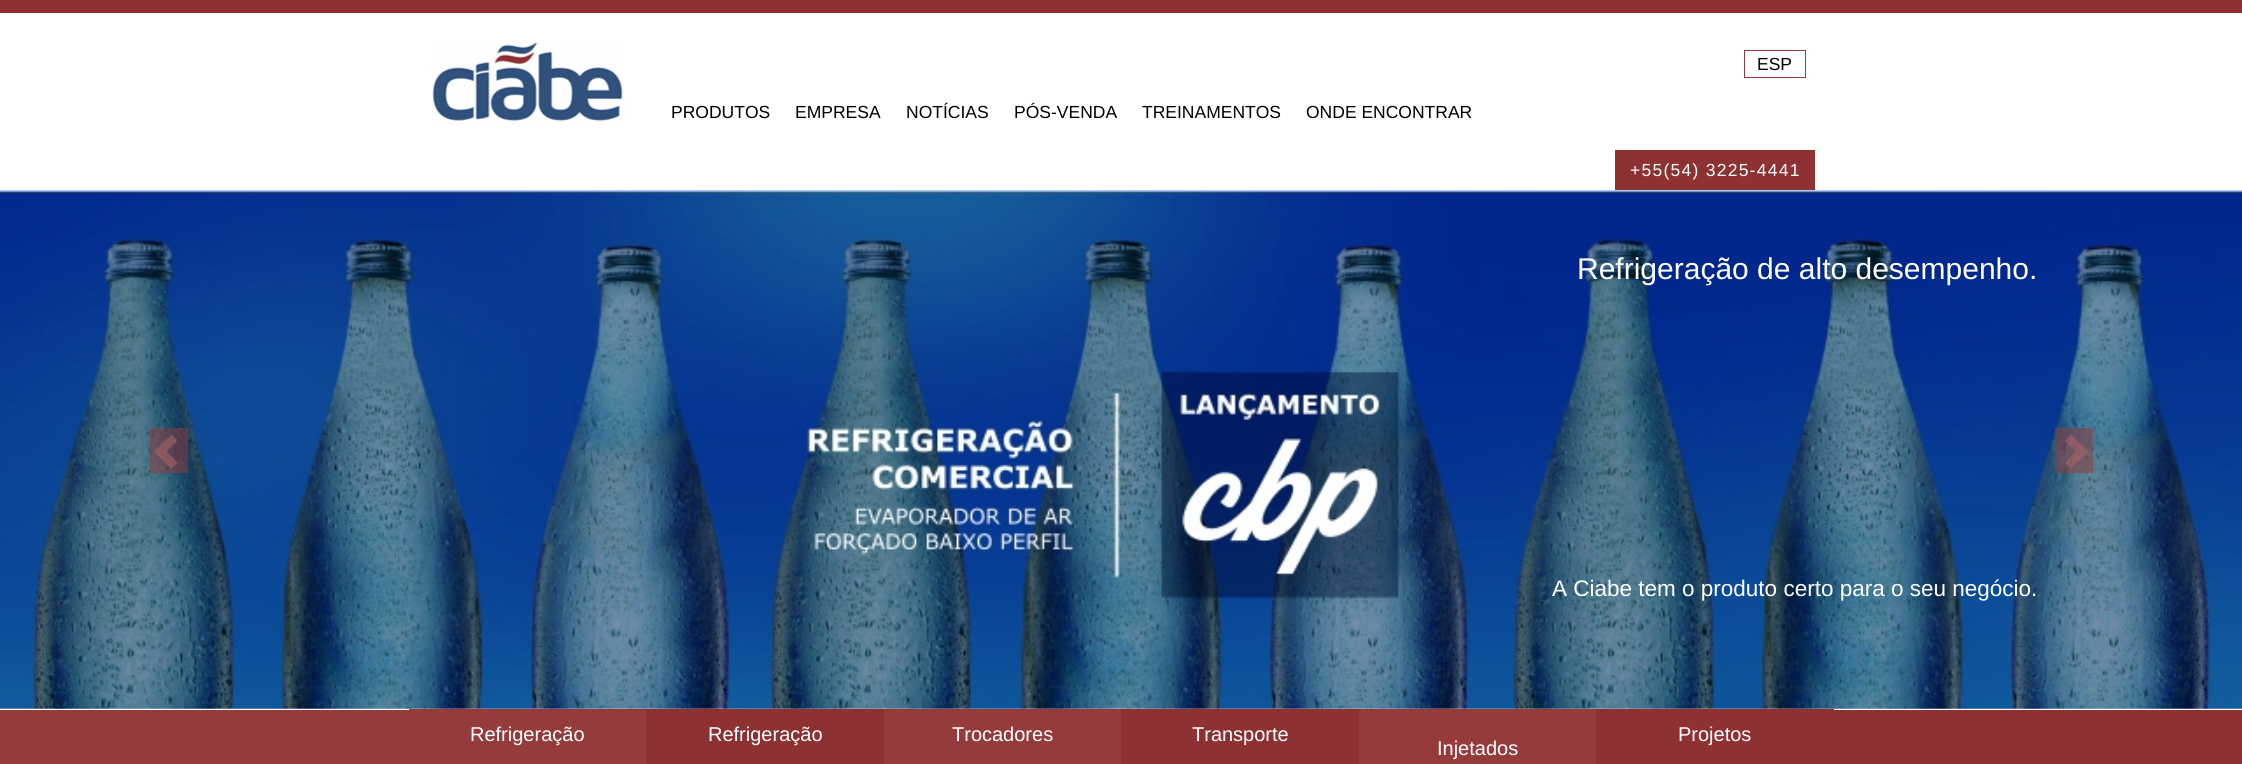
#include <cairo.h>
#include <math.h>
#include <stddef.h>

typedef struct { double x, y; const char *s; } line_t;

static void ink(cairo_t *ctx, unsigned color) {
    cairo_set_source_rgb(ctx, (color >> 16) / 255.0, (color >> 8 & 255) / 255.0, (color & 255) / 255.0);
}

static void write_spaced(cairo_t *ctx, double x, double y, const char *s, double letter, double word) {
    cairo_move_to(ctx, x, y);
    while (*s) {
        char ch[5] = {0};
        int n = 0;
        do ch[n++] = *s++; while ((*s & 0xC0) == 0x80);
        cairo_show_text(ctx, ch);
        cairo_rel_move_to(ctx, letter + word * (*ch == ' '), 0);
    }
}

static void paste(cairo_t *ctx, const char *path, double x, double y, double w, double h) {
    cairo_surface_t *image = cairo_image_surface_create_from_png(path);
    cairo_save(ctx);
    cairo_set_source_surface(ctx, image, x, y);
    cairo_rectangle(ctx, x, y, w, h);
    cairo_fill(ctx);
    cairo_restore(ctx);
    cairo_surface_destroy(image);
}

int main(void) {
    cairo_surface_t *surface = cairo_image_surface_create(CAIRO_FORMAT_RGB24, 2242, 764);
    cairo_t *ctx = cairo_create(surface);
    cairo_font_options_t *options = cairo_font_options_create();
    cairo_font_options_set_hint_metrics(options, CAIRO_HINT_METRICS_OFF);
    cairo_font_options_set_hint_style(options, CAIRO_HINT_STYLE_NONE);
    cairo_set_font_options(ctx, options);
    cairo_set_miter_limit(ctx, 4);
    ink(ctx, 0xFFFFFF);
    cairo_paint(ctx);
    ink(ctx, 0x8E3031);
    cairo_rectangle(ctx, 0, 0, 2242, 13);
    cairo_fill(ctx);
    paste(ctx, "media/1.png", 432, 42, 191, 79);
    cairo_rectangle(ctx, 1744.5, 50.5, 61, 27);
    ink(ctx, 0x953B3C);
    cairo_set_line_width(ctx, 1);
    cairo_stroke(ctx);
    cairo_select_font_face(ctx, "Liberation Sans", CAIRO_FONT_SLANT_NORMAL, CAIRO_FONT_WEIGHT_NORMAL);
    cairo_set_font_size(ctx, 17.5);
    ink(ctx, 0x000000);
    {
        static const line_t items[] = {
            {1757, 70, "ESP"},
            {671, 118, "PRODUTOS"},
            {795, 118, "EMPRESA"},
            {906, 118, "NOTÍCIAS"},
            {1014, 118, "PÓS-VENDA"},
            {1142, 118, "TREINAMENTOS"},
            {1306, 118, "ONDE ENCONTRAR"},
        };
        for (size_t i = 0; i < sizeof items / sizeof *items; i++) {
            cairo_move_to(ctx, items[i].x, items[i].y);
            cairo_show_text(ctx, items[i].s);
        }
    }
    ink(ctx, 0x8D3132);
    cairo_rectangle(ctx, 1615, 150, 200, 40);
    cairo_fill(ctx);
    ink(ctx, 0xFFFFFF);
    write_spaced(ctx, 1630, 176, "+55(54) 3225-4441", 1.25, 0);
    paste(ctx, "media/2.png", 0, 190, 2242, 519);
    cairo_set_font_size(ctx, 30);
    cairo_move_to(ctx, 1577, 279);
    cairo_show_text(ctx, "Refrigeração de alto desempenho.");
    cairo_set_font_size(ctx, 22.5);
    cairo_move_to(ctx, 1552, 596);
    cairo_show_text(ctx, "A Ciabe tem o produto certo para o seu negócio.");
    cairo_set_source_rgba(ctx, 0.58, 0.227, 0.231, 0.5);
    cairo_rectangle(ctx, 150, 428, 38, 45);
    cairo_fill(ctx);
    cairo_set_source_rgba(ctx, 0.71, 0.404, 0.408, 0.5);
    cairo_new_path(ctx);
    cairo_move_to(ctx, 177.5, 440.5);
    cairo_line_to(ctx, 166.5, 451.5);
    cairo_line_to(ctx, 177.5, 462.5);
    cairo_line_to(ctx, 171.5, 469);
    cairo_line_to(ctx, 154, 451.5);
    cairo_line_to(ctx, 171.5, 434.5);
    cairo_close_path(ctx);
    cairo_fill(ctx);
    cairo_set_source_rgba(ctx, 0.58, 0.227, 0.231, 0.5);
    cairo_rectangle(ctx, 2055, 428, 38, 45);
    cairo_fill(ctx);
    cairo_set_source_rgba(ctx, 0.71, 0.404, 0.408, 0.5);
    cairo_new_path(ctx);
    cairo_move_to(ctx, 2088, 451.5);
    cairo_line_to(ctx, 2071, 469);
    cairo_line_to(ctx, 2065, 462.5);
    cairo_line_to(ctx, 2076, 451.5);
    cairo_line_to(ctx, 2065, 440.5);
    cairo_line_to(ctx, 2071, 434.5);
    cairo_close_path(ctx);
    cairo_fill(ctx);
    paste(ctx, "media/3.png", 0, 710, 2242, 54);
    ink(ctx, 0x953B3C);
    cairo_rectangle(ctx, 409, 709, 237, 1);
    cairo_fill(ctx);
    cairo_set_font_size(ctx, 20);
    ink(ctx, 0xFFFFFF);
    cairo_move_to(ctx, 470, 741);
    cairo_show_text(ctx, "Refrigeração");
    ink(ctx, 0x8D3132);
    cairo_rectangle(ctx, 646, 709, 238, 55);
    cairo_fill(ctx);
    ink(ctx, 0xFFFFFF);
    cairo_move_to(ctx, 708, 741);
    cairo_show_text(ctx, "Refrigeração");
    ink(ctx, 0x953B3C);
    cairo_rectangle(ctx, 884, 709, 237, 1);
    cairo_fill(ctx);
    ink(ctx, 0xFFFFFF);
    cairo_move_to(ctx, 952, 741);
    cairo_show_text(ctx, "Trocadores");
    ink(ctx, 0x8D3132);
    cairo_rectangle(ctx, 1121, 709, 238, 55);
    cairo_fill(ctx);
    ink(ctx, 0xFFFFFF);
    cairo_move_to(ctx, 1192, 741);
    cairo_show_text(ctx, "Transporte");
    ink(ctx, 0x8D3132);
    cairo_rectangle(ctx, 1596, 709, 238, 1);
    cairo_fill(ctx);
    ink(ctx, 0xFFFFFF);
    cairo_move_to(ctx, 1678, 741);
    cairo_show_text(ctx, "Projetos");
    ink(ctx, 0x953B3C);
    cairo_rectangle(ctx, 1359, 709, 237, 55);
    cairo_fill(ctx);
    ink(ctx, 0xFFFFFF);
    cairo_move_to(ctx, 1437, 755);
    cairo_show_text(ctx, "Injetados");
    cairo_surface_write_to_png(surface, "image.png");
    cairo_font_options_destroy(options);
    cairo_destroy(ctx);
    cairo_surface_destroy(surface);
    return 0;
}
